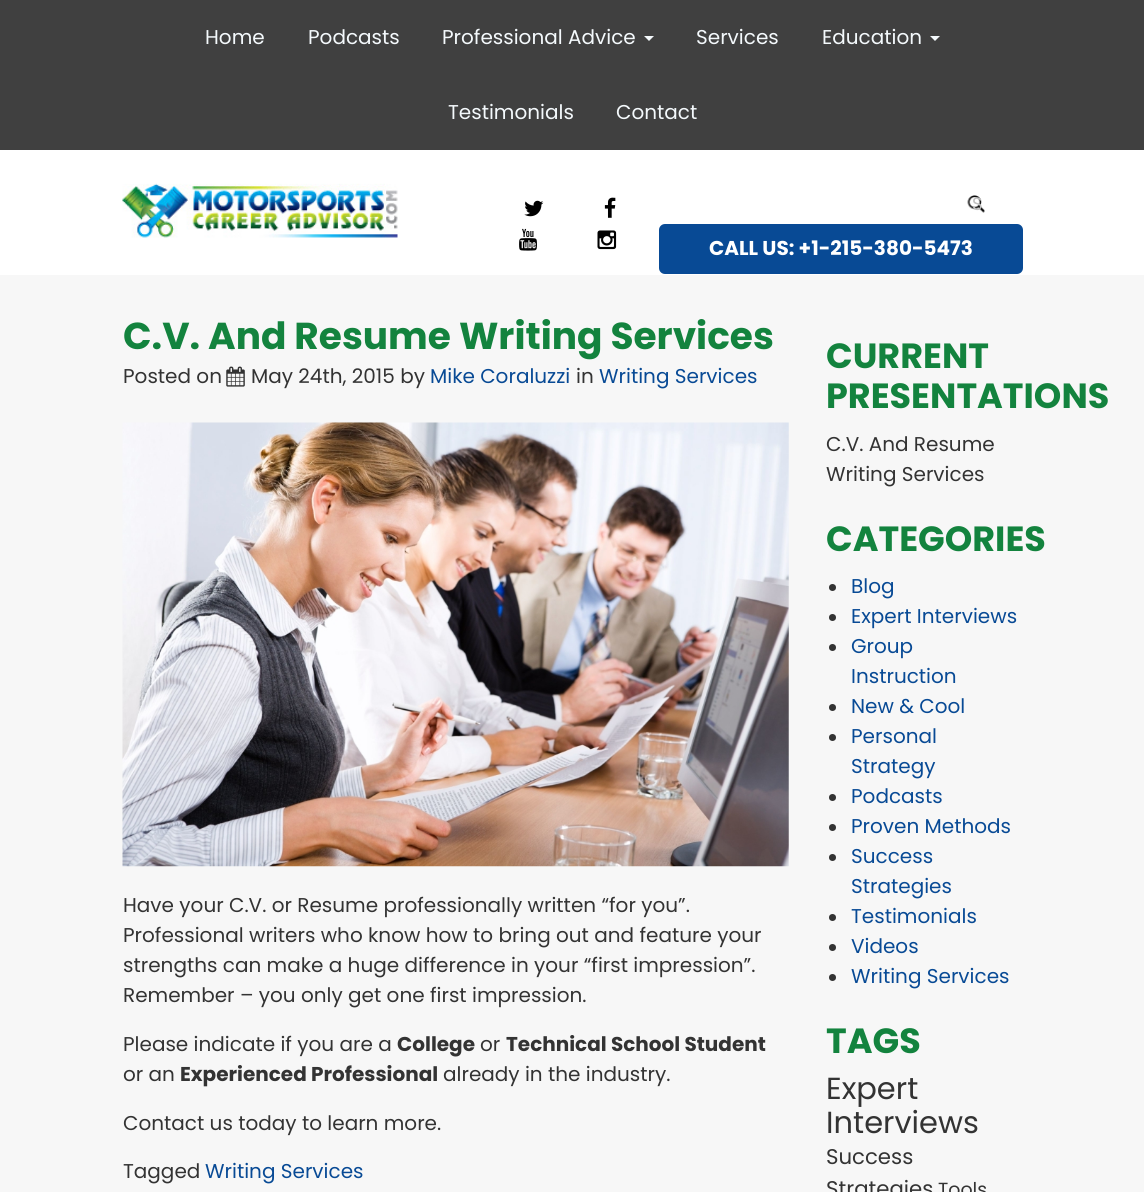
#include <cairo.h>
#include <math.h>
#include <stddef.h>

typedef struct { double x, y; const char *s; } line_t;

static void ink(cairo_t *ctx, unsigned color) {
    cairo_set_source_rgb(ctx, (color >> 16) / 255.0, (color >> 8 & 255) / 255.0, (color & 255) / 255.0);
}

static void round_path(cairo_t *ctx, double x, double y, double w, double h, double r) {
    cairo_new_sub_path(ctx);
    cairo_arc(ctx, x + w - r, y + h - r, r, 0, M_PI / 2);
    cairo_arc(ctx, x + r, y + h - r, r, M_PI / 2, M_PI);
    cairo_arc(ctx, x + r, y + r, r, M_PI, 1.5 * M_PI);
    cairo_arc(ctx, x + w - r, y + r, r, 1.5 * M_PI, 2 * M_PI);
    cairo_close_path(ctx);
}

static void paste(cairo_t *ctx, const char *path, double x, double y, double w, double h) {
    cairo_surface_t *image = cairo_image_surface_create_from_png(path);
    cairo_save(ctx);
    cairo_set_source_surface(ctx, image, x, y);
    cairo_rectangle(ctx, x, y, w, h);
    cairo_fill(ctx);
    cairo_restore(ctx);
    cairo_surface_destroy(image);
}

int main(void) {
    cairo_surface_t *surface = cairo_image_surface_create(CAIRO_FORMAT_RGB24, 1144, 1192);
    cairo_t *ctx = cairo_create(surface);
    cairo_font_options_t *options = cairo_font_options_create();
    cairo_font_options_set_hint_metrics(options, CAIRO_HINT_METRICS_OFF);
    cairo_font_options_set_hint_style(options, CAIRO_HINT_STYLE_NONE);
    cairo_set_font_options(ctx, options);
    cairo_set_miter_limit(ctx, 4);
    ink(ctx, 0xFFFFFF);
    cairo_paint(ctx);
    ink(ctx, 0x404040);
    cairo_rectangle(ctx, 0, 0, 1144, 150);
    cairo_fill(ctx);
    cairo_select_font_face(ctx, "Poppins", CAIRO_FONT_SLANT_NORMAL, CAIRO_FONT_WEIGHT_NORMAL);
    cairo_set_font_size(ctx, 20);
    ink(ctx, 0xF4F9FC);
    {
        static const line_t items[] = {
            {205, 44, "Home"},
            {308, 44, "Podcasts"},
            {442, 44, "Professional Advice"},
        };
        for (size_t i = 0; i < sizeof items / sizeof *items; i++) {
            cairo_move_to(ctx, items[i].x, items[i].y);
            cairo_show_text(ctx, items[i].s);
        }
    }
    cairo_new_path(ctx);
    cairo_move_to(ctx, 644, 36);
    cairo_line_to(ctx, 654, 36);
    cairo_line_to(ctx, 649, 41);
    cairo_close_path(ctx);
    cairo_fill(ctx);
    cairo_move_to(ctx, 696, 44);
    cairo_show_text(ctx, "Services");
    cairo_move_to(ctx, 822, 44);
    cairo_show_text(ctx, "Education");
    cairo_new_path(ctx);
    cairo_move_to(ctx, 930, 36);
    cairo_line_to(ctx, 940, 36);
    cairo_line_to(ctx, 935, 41);
    cairo_close_path(ctx);
    cairo_fill(ctx);
    cairo_move_to(ctx, 448, 119);
    cairo_show_text(ctx, "Testimonials");
    cairo_move_to(ctx, 616, 119);
    cairo_show_text(ctx, "Contact");
    paste(ctx, "media/1.png", 122, 183, 276, 55);
    paste(ctx, "media/2.png", 524, 200, 20, 17);
    paste(ctx, "media/3.png", 604, 197, 12, 21);
    paste(ctx, "media/4.png", 519, 228, 18, 23);
    paste(ctx, "media/5.png", 597, 230, 20, 20);
    paste(ctx, "media/6.png", 967, 195, 18, 18);
    cairo_set_font_size(ctx, 18);
    ink(ctx, 0xBFBFBF);
    cairo_move_to(ctx, 972, 210);
    cairo_show_text(ctx, "S");
    ink(ctx, 0x084A95);
    round_path(ctx, 659, 224, 364, 50, 6);
    cairo_fill(ctx);
    cairo_select_font_face(ctx, "Poppins", CAIRO_FONT_SLANT_NORMAL, CAIRO_FONT_WEIGHT_BOLD);
    cairo_set_font_size(ctx, 20);
    ink(ctx, 0xFFFFFF);
    cairo_move_to(ctx, 709, 255);
    cairo_show_text(ctx, "CALL US: +1-215-380-5473");
    ink(ctx, 0xF7F7F7);
    cairo_rectangle(ctx, 0, 275, 1144, 917);
    cairo_fill(ctx);
    cairo_set_font_size(ctx, 37.5);
    ink(ctx, 0x13833E);
    cairo_move_to(ctx, 123, 349);
    cairo_show_text(ctx, "C.V. And Resume Writing Services");
    cairo_select_font_face(ctx, "Poppins", CAIRO_FONT_SLANT_NORMAL, CAIRO_FONT_WEIGHT_NORMAL);
    cairo_set_font_size(ctx, 20);
    ink(ctx, 0x333333);
    cairo_move_to(ctx, 123, 383);
    cairo_show_text(ctx, "Posted on");
    paste(ctx, "media/7.png", 226, 366, 19, 21);
    cairo_move_to(ctx, 251, 383);
    cairo_show_text(ctx, "May 24th, 2015 by");
    ink(ctx, 0x084A95);
    cairo_move_to(ctx, 430, 383);
    cairo_show_text(ctx, "Mike Coraluzzi");
    ink(ctx, 0x333333);
    cairo_move_to(ctx, 576, 383);
    cairo_show_text(ctx, "in");
    ink(ctx, 0x084A95);
    cairo_move_to(ctx, 599, 383);
    cairo_show_text(ctx, "Writing Services");
    paste(ctx, "media/8.png", 122, 422, 667, 445);
    ink(ctx, 0x333333);
    {
        static const line_t items[] = {
            {123, 912, "Have your C.V. or Resume professionally written “for you”."},
            {123, 942, "Professional writers who know how to bring out and feature your"},
            {123, 972, "strengths can make a huge difference in your “first impression”."},
            {123, 1002, "Remember – you only get one first impression."},
            {123, 1051, "Please indicate if you are a"},
        };
        for (size_t i = 0; i < sizeof items / sizeof *items; i++) {
            cairo_move_to(ctx, items[i].x, items[i].y);
            cairo_show_text(ctx, items[i].s);
        }
    }
    cairo_select_font_face(ctx, "Poppins", CAIRO_FONT_SLANT_NORMAL, CAIRO_FONT_WEIGHT_BOLD);
    cairo_move_to(ctx, 397, 1051);
    cairo_show_text(ctx, "College");
    cairo_select_font_face(ctx, "Poppins", CAIRO_FONT_SLANT_NORMAL, CAIRO_FONT_WEIGHT_NORMAL);
    cairo_move_to(ctx, 480, 1051);
    cairo_show_text(ctx, "or");
    cairo_select_font_face(ctx, "Poppins", CAIRO_FONT_SLANT_NORMAL, CAIRO_FONT_WEIGHT_BOLD);
    cairo_move_to(ctx, 506, 1051);
    cairo_show_text(ctx, "Technical School Student");
    cairo_select_font_face(ctx, "Poppins", CAIRO_FONT_SLANT_NORMAL, CAIRO_FONT_WEIGHT_NORMAL);
    cairo_move_to(ctx, 123, 1081);
    cairo_show_text(ctx, "or an");
    cairo_select_font_face(ctx, "Poppins", CAIRO_FONT_SLANT_NORMAL, CAIRO_FONT_WEIGHT_BOLD);
    cairo_move_to(ctx, 180, 1081);
    cairo_show_text(ctx, "Experienced Professional");
    cairo_select_font_face(ctx, "Poppins", CAIRO_FONT_SLANT_NORMAL, CAIRO_FONT_WEIGHT_NORMAL);
    {
        static const line_t items[] = {
            {443, 1081, "already in the industry."},
            {123, 1130, "Contact us today to learn more."},
            {123, 1178, "Tagged"},
        };
        for (size_t i = 0; i < sizeof items / sizeof *items; i++) {
            cairo_move_to(ctx, items[i].x, items[i].y);
            cairo_show_text(ctx, items[i].s);
        }
    }
    ink(ctx, 0x084A95);
    cairo_move_to(ctx, 205, 1178);
    cairo_show_text(ctx, "Writing Services");
    cairo_select_font_face(ctx, "Poppins", CAIRO_FONT_SLANT_NORMAL, CAIRO_FONT_WEIGHT_BOLD);
    cairo_set_font_size(ctx, 35);
    ink(ctx, 0x13833E);
    cairo_move_to(ctx, 826, 368);
    cairo_show_text(ctx, "CURRENT");
    cairo_move_to(ctx, 826, 408);
    cairo_show_text(ctx, "PRESENTATIONS");
    cairo_select_font_face(ctx, "Poppins", CAIRO_FONT_SLANT_NORMAL, CAIRO_FONT_WEIGHT_NORMAL);
    cairo_set_font_size(ctx, 20);
    ink(ctx, 0x333333);
    cairo_move_to(ctx, 826, 451);
    cairo_show_text(ctx, "C.V. And Resume");
    cairo_move_to(ctx, 826, 481);
    cairo_show_text(ctx, "Writing Services");
    cairo_select_font_face(ctx, "Poppins", CAIRO_FONT_SLANT_NORMAL, CAIRO_FONT_WEIGHT_BOLD);
    cairo_set_font_size(ctx, 35);
    ink(ctx, 0x13833E);
    cairo_move_to(ctx, 826, 551);
    cairo_show_text(ctx, "CATEGORIES");
    ink(ctx, 0x333333);
    cairo_new_path(ctx);
    cairo_arc(ctx, 832.5, 587.5, 3.5, 0, 2 * M_PI);
    cairo_fill(ctx);
    cairo_select_font_face(ctx, "Poppins", CAIRO_FONT_SLANT_NORMAL, CAIRO_FONT_WEIGHT_NORMAL);
    cairo_set_font_size(ctx, 20);
    ink(ctx, 0x084A95);
    cairo_move_to(ctx, 851, 593);
    cairo_show_text(ctx, "Blog");
    ink(ctx, 0x333333);
    cairo_new_path(ctx);
    cairo_arc(ctx, 832.5, 617.5, 3.5, 0, 2 * M_PI);
    cairo_fill(ctx);
    ink(ctx, 0x084A95);
    cairo_move_to(ctx, 851, 623);
    cairo_show_text(ctx, "Expert Interviews");
    ink(ctx, 0x333333);
    cairo_new_path(ctx);
    cairo_arc(ctx, 832.5, 647.5, 3.5, 0, 2 * M_PI);
    cairo_fill(ctx);
    ink(ctx, 0x084A95);
    cairo_move_to(ctx, 851, 653);
    cairo_show_text(ctx, "Group");
    cairo_move_to(ctx, 851, 683);
    cairo_show_text(ctx, "Instruction");
    ink(ctx, 0x333333);
    cairo_new_path(ctx);
    cairo_arc(ctx, 832.5, 707.5, 3.5, 0, 2 * M_PI);
    cairo_fill(ctx);
    ink(ctx, 0x084A95);
    cairo_move_to(ctx, 851, 713);
    cairo_show_text(ctx, "New & Cool");
    ink(ctx, 0x333333);
    cairo_new_path(ctx);
    cairo_arc(ctx, 832.5, 737.5, 3.5, 0, 2 * M_PI);
    cairo_fill(ctx);
    ink(ctx, 0x084A95);
    cairo_move_to(ctx, 851, 743);
    cairo_show_text(ctx, "Personal");
    cairo_move_to(ctx, 851, 773);
    cairo_show_text(ctx, "Strategy");
    ink(ctx, 0x333333);
    cairo_new_path(ctx);
    cairo_arc(ctx, 832.5, 797.5, 3.5, 0, 2 * M_PI);
    cairo_fill(ctx);
    ink(ctx, 0x084A95);
    cairo_move_to(ctx, 851, 803);
    cairo_show_text(ctx, "Podcasts");
    ink(ctx, 0x333333);
    cairo_new_path(ctx);
    cairo_arc(ctx, 832.5, 827.5, 3.5, 0, 2 * M_PI);
    cairo_fill(ctx);
    ink(ctx, 0x084A95);
    cairo_move_to(ctx, 851, 833);
    cairo_show_text(ctx, "Proven Methods");
    ink(ctx, 0x333333);
    cairo_new_path(ctx);
    cairo_arc(ctx, 832.5, 857.5, 3.5, 0, 2 * M_PI);
    cairo_fill(ctx);
    ink(ctx, 0x084A95);
    cairo_move_to(ctx, 851, 863);
    cairo_show_text(ctx, "Success");
    cairo_move_to(ctx, 851, 893);
    cairo_show_text(ctx, "Strategies");
    ink(ctx, 0x333333);
    cairo_new_path(ctx);
    cairo_arc(ctx, 832.5, 917.5, 3.5, 0, 2 * M_PI);
    cairo_fill(ctx);
    ink(ctx, 0x084A95);
    cairo_move_to(ctx, 851, 923);
    cairo_show_text(ctx, "Testimonials");
    ink(ctx, 0x333333);
    cairo_new_path(ctx);
    cairo_arc(ctx, 832.5, 947.5, 3.5, 0, 2 * M_PI);
    cairo_fill(ctx);
    ink(ctx, 0x084A95);
    cairo_move_to(ctx, 851, 953);
    cairo_show_text(ctx, "Videos");
    ink(ctx, 0x333333);
    cairo_new_path(ctx);
    cairo_arc(ctx, 832.5, 977.5, 3.5, 0, 2 * M_PI);
    cairo_fill(ctx);
    ink(ctx, 0x084A95);
    cairo_move_to(ctx, 851, 983);
    cairo_show_text(ctx, "Writing Services");
    cairo_select_font_face(ctx, "Poppins", CAIRO_FONT_SLANT_NORMAL, CAIRO_FONT_WEIGHT_BOLD);
    cairo_set_font_size(ctx, 35);
    ink(ctx, 0x13833E);
    cairo_move_to(ctx, 826, 1053);
    cairo_show_text(ctx, "TAGS");
    cairo_select_font_face(ctx, "Poppins", CAIRO_FONT_SLANT_NORMAL, CAIRO_FONT_WEIGHT_NORMAL);
    cairo_set_font_size(ctx, 30.5);
    ink(ctx, 0x333333);
    cairo_move_to(ctx, 826, 1099);
    cairo_show_text(ctx, "Expert");
    cairo_move_to(ctx, 826, 1133);
    cairo_show_text(ctx, "Interviews");
    cairo_set_font_size(ctx, 21.25);
    cairo_move_to(ctx, 826, 1164);
    cairo_show_text(ctx, "Success");
    cairo_move_to(ctx, 826, 1196);
    cairo_show_text(ctx, "Strategies");
    cairo_set_font_size(ctx, 19);
    cairo_move_to(ctx, 938, 1196);
    cairo_show_text(ctx, "Tools");
    cairo_surface_write_to_png(surface, "image.png");
    cairo_font_options_destroy(options);
    cairo_destroy(ctx);
    cairo_surface_destroy(surface);
    return 0;
}
